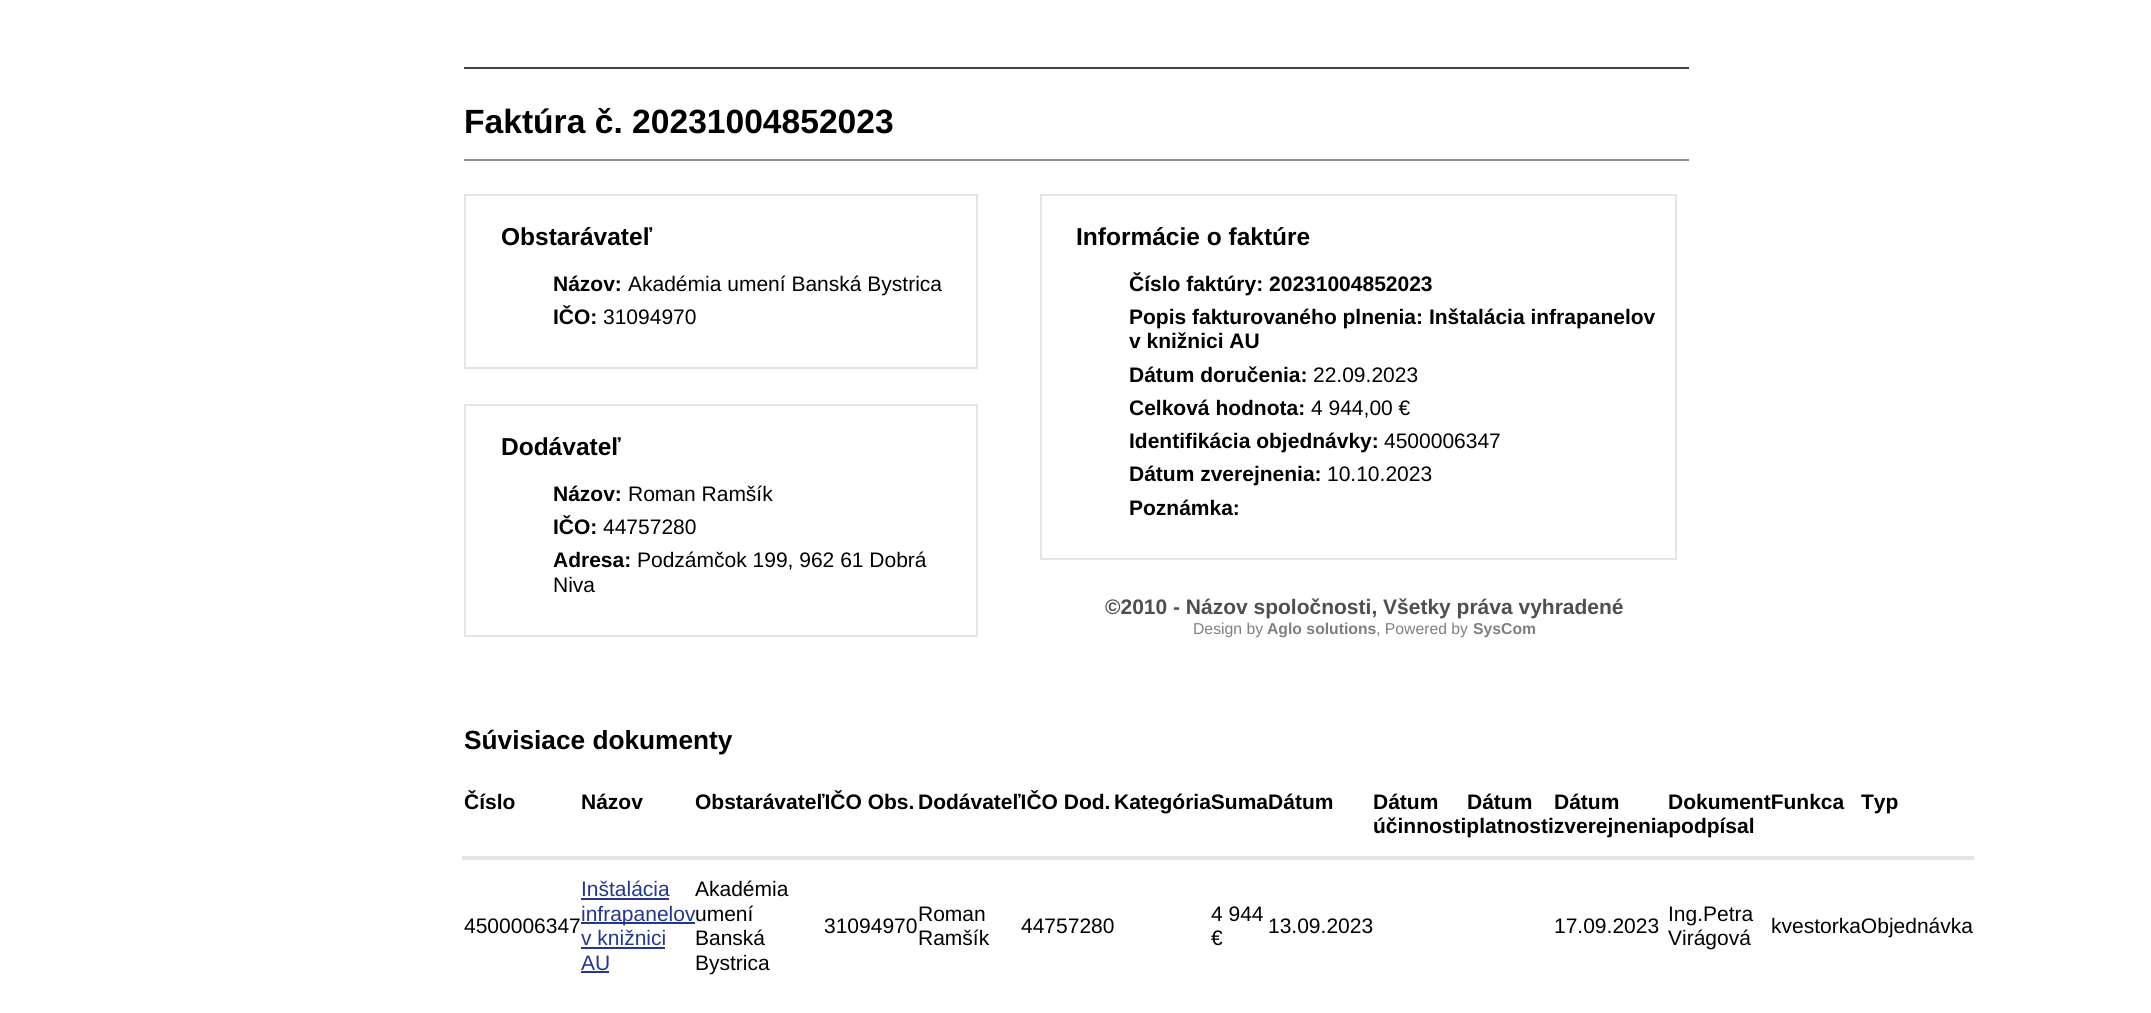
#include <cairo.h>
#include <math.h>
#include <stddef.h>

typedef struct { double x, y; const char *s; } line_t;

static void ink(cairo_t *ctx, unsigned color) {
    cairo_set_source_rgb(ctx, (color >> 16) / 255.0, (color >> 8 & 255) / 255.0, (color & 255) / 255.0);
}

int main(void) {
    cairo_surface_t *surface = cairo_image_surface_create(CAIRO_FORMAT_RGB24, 2151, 1013);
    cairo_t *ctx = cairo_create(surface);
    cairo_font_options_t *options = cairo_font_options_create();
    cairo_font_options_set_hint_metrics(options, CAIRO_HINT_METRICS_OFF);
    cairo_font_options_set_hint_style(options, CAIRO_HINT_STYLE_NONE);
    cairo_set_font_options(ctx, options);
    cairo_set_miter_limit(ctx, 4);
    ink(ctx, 0xFFFFFF);
    cairo_paint(ctx);
    ink(ctx, 0x3F3F3F);
    cairo_rectangle(ctx, 464, 67, 1225, 2);
    cairo_fill(ctx);
    cairo_select_font_face(ctx, "Liberation Sans", CAIRO_FONT_SLANT_NORMAL, CAIRO_FONT_WEIGHT_BOLD);
    cairo_set_font_size(ctx, 33.6);
    ink(ctx, 0x000000);
    cairo_move_to(ctx, 464, 133);
    cairo_show_text(ctx, "Faktúra č. 20231004852023");
    cairo_rectangle(ctx, 465, 195, 512, 173);
    ink(ctx, 0xE5E5E5);
    cairo_stroke(ctx);
    cairo_set_font_size(ctx, 24.5);
    ink(ctx, 0x000000);
    cairo_move_to(ctx, 501, 245);
    cairo_show_text(ctx, "Obstarávateľ");
    cairo_set_font_size(ctx, 21);
    cairo_move_to(ctx, 553, 291);
    cairo_show_text(ctx, "Názov:");
    cairo_select_font_face(ctx, "Liberation Sans", CAIRO_FONT_SLANT_NORMAL, CAIRO_FONT_WEIGHT_NORMAL);
    cairo_move_to(ctx, 628, 291);
    cairo_show_text(ctx, "Akadémia umení Banská Bystrica");
    cairo_select_font_face(ctx, "Liberation Sans", CAIRO_FONT_SLANT_NORMAL, CAIRO_FONT_WEIGHT_BOLD);
    cairo_move_to(ctx, 553, 324);
    cairo_show_text(ctx, "IČO:");
    cairo_select_font_face(ctx, "Liberation Sans", CAIRO_FONT_SLANT_NORMAL, CAIRO_FONT_WEIGHT_NORMAL);
    cairo_move_to(ctx, 603, 324);
    cairo_show_text(ctx, "31094970");
    cairo_rectangle(ctx, 465, 405, 512, 231);
    ink(ctx, 0xE5E5E5);
    cairo_stroke(ctx);
    cairo_select_font_face(ctx, "Liberation Sans", CAIRO_FONT_SLANT_NORMAL, CAIRO_FONT_WEIGHT_BOLD);
    cairo_set_font_size(ctx, 24.5);
    ink(ctx, 0x000000);
    cairo_move_to(ctx, 501, 455);
    cairo_show_text(ctx, "Dodávateľ");
    cairo_set_font_size(ctx, 21);
    cairo_move_to(ctx, 553, 501);
    cairo_show_text(ctx, "Názov:");
    cairo_select_font_face(ctx, "Liberation Sans", CAIRO_FONT_SLANT_NORMAL, CAIRO_FONT_WEIGHT_NORMAL);
    cairo_move_to(ctx, 628, 501);
    cairo_show_text(ctx, "Roman Ramšík");
    cairo_select_font_face(ctx, "Liberation Sans", CAIRO_FONT_SLANT_NORMAL, CAIRO_FONT_WEIGHT_BOLD);
    cairo_move_to(ctx, 553, 534);
    cairo_show_text(ctx, "IČO:");
    cairo_select_font_face(ctx, "Liberation Sans", CAIRO_FONT_SLANT_NORMAL, CAIRO_FONT_WEIGHT_NORMAL);
    cairo_move_to(ctx, 603, 534);
    cairo_show_text(ctx, "44757280");
    cairo_select_font_face(ctx, "Liberation Sans", CAIRO_FONT_SLANT_NORMAL, CAIRO_FONT_WEIGHT_BOLD);
    cairo_move_to(ctx, 553, 567);
    cairo_show_text(ctx, "Adresa:");
    cairo_select_font_face(ctx, "Liberation Sans", CAIRO_FONT_SLANT_NORMAL, CAIRO_FONT_WEIGHT_NORMAL);
    cairo_move_to(ctx, 637, 567);
    cairo_show_text(ctx, "Podzámčok 199, 962 61 Dobrá");
    cairo_move_to(ctx, 553, 592);
    cairo_show_text(ctx, "Niva");
    cairo_rectangle(ctx, 1041, 195, 635, 364);
    ink(ctx, 0xE5E5E5);
    cairo_stroke(ctx);
    cairo_select_font_face(ctx, "Liberation Sans", CAIRO_FONT_SLANT_NORMAL, CAIRO_FONT_WEIGHT_BOLD);
    cairo_set_font_size(ctx, 24.5);
    ink(ctx, 0x000000);
    cairo_move_to(ctx, 1076, 245);
    cairo_show_text(ctx, "Informácie o faktúre");
    cairo_set_font_size(ctx, 21);
    {
        static const line_t items[] = {
            {1129, 291, "Číslo faktúry: 20231004852023"},
            {1129, 324, "Popis fakturovaného plnenia: Inštalácia infrapanelov"},
            {1129, 348, "v knižnici AU"},
            {1129, 382, "Dátum doručenia:"},
        };
        for (size_t i = 0; i < sizeof items / sizeof *items; i++) {
            cairo_move_to(ctx, items[i].x, items[i].y);
            cairo_show_text(ctx, items[i].s);
        }
    }
    cairo_select_font_face(ctx, "Liberation Sans", CAIRO_FONT_SLANT_NORMAL, CAIRO_FONT_WEIGHT_NORMAL);
    cairo_move_to(ctx, 1313, 382);
    cairo_show_text(ctx, "22.09.2023");
    cairo_select_font_face(ctx, "Liberation Sans", CAIRO_FONT_SLANT_NORMAL, CAIRO_FONT_WEIGHT_BOLD);
    cairo_move_to(ctx, 1129, 415);
    cairo_show_text(ctx, "Celková hodnota:");
    cairo_select_font_face(ctx, "Liberation Sans", CAIRO_FONT_SLANT_NORMAL, CAIRO_FONT_WEIGHT_NORMAL);
    cairo_move_to(ctx, 1311, 415);
    cairo_show_text(ctx, "4 944,00 €");
    cairo_select_font_face(ctx, "Liberation Sans", CAIRO_FONT_SLANT_NORMAL, CAIRO_FONT_WEIGHT_BOLD);
    cairo_move_to(ctx, 1129, 448);
    cairo_show_text(ctx, "Identifikácia objednávky:");
    cairo_select_font_face(ctx, "Liberation Sans", CAIRO_FONT_SLANT_NORMAL, CAIRO_FONT_WEIGHT_NORMAL);
    cairo_move_to(ctx, 1384, 448);
    cairo_show_text(ctx, "4500006347");
    cairo_select_font_face(ctx, "Liberation Sans", CAIRO_FONT_SLANT_NORMAL, CAIRO_FONT_WEIGHT_BOLD);
    cairo_move_to(ctx, 1129, 481);
    cairo_show_text(ctx, "Dátum zverejnenia:");
    cairo_select_font_face(ctx, "Liberation Sans", CAIRO_FONT_SLANT_NORMAL, CAIRO_FONT_WEIGHT_NORMAL);
    cairo_move_to(ctx, 1327, 481);
    cairo_show_text(ctx, "10.10.2023");
    cairo_select_font_face(ctx, "Liberation Sans", CAIRO_FONT_SLANT_NORMAL, CAIRO_FONT_WEIGHT_BOLD);
    cairo_move_to(ctx, 1129, 515);
    cairo_show_text(ctx, "Poznámka:");
    cairo_set_font_size(ctx, 26.25);
    cairo_move_to(ctx, 464, 749);
    cairo_show_text(ctx, "Súvisiace dokumenty");
    cairo_set_font_size(ctx, 21);
    {
        static const line_t items[] = {
            {464, 809, "Číslo"},
            {581, 809, "Názov"},
            {695, 809, "ObstarávateľIČO Obs."},
            {918, 809, "DodávateľIČO Dod."},
            {1114, 809, "KategóriaSumaDátum"},
            {1373, 809, "Dátum"},
            {1373, 833, "účinnostiplatnostizverejneniapodpísal"},
            {1467, 809, "Dátum"},
            {1554, 809, "Dátum"},
            {1668, 809, "DokumentFunkca"},
        };
        for (size_t i = 0; i < sizeof items / sizeof *items; i++) {
            cairo_move_to(ctx, items[i].x, items[i].y);
            cairo_show_text(ctx, items[i].s);
        }
    }
    ink(ctx, 0xE5E5E5);
    cairo_rectangle(ctx, 462, 856, 1512, 4);
    cairo_fill(ctx);
    ink(ctx, 0x000000);
    cairo_move_to(ctx, 1861, 809);
    cairo_show_text(ctx, "Typ");
    cairo_select_font_face(ctx, "Liberation Sans", CAIRO_FONT_SLANT_NORMAL, CAIRO_FONT_WEIGHT_NORMAL);
    cairo_move_to(ctx, 464, 933);
    cairo_show_text(ctx, "4500006347");
    ink(ctx, 0x223795);
    cairo_move_to(ctx, 581, 896);
    cairo_show_text(ctx, "Inštalácia");
    cairo_rectangle(ctx, 581, 898, 88, 2);
    cairo_fill(ctx);
    cairo_rectangle(ctx, 581, 922, 114, 2);
    cairo_fill(ctx);
    cairo_move_to(ctx, 581, 921);
    cairo_show_text(ctx, "infrapanelov");
    cairo_move_to(ctx, 581, 945);
    cairo_show_text(ctx, "v knižnici");
    cairo_rectangle(ctx, 581, 947, 84, 2);
    cairo_fill(ctx);
    cairo_move_to(ctx, 581, 970);
    cairo_show_text(ctx, "AU");
    cairo_rectangle(ctx, 581, 971, 28, 2);
    cairo_fill(ctx);
    ink(ctx, 0x000000);
    {
        static const line_t items[] = {
            {695, 896, "Akadémia"},
            {695, 921, "umení"},
            {695, 945, "Banská"},
            {695, 970, "Bystrica"},
            {824, 933, "31094970"},
            {918, 921, "Roman"},
            {918, 945, "Ramšík"},
            {1021, 933, "44757280"},
            {1211, 921, "4 944"},
            {1211, 945, "€"},
            {1268, 933, "13.09.2023"},
            {1554, 933, "17.09.2023"},
            {1668, 921, "Ing.Petra"},
            {1668, 945, "Virágová"},
            {1771, 933, "kvestorkaObjednávka"},
        };
        for (size_t i = 0; i < sizeof items / sizeof *items; i++) {
            cairo_move_to(ctx, items[i].x, items[i].y);
            cairo_show_text(ctx, items[i].s);
        }
    }
    ink(ctx, 0x8F8F8F);
    cairo_rectangle(ctx, 464, 159, 1225, 2);
    cairo_fill(ctx);
    cairo_select_font_face(ctx, "Liberation Sans", CAIRO_FONT_SLANT_NORMAL, CAIRO_FONT_WEIGHT_BOLD);
    ink(ctx, 0x4F4F4F);
    cairo_move_to(ctx, 1105, 614);
    cairo_show_text(ctx, "©2010 - Názov spoločnosti, Všetky práva vyhradené");
    cairo_select_font_face(ctx, "Liberation Sans", CAIRO_FONT_SLANT_NORMAL, CAIRO_FONT_WEIGHT_NORMAL);
    cairo_set_font_size(ctx, 15.75);
    ink(ctx, 0x7F7F7F);
    cairo_move_to(ctx, 1193, 634);
    cairo_show_text(ctx, "Design by");
    cairo_select_font_face(ctx, "Liberation Sans", CAIRO_FONT_SLANT_NORMAL, CAIRO_FONT_WEIGHT_BOLD);
    cairo_move_to(ctx, 1267, 634);
    cairo_show_text(ctx, "Aglo solutions");
    cairo_select_font_face(ctx, "Liberation Sans", CAIRO_FONT_SLANT_NORMAL, CAIRO_FONT_WEIGHT_NORMAL);
    cairo_move_to(ctx, 1376, 634);
    cairo_show_text(ctx, ", Powered by");
    cairo_select_font_face(ctx, "Liberation Sans", CAIRO_FONT_SLANT_NORMAL, CAIRO_FONT_WEIGHT_BOLD);
    cairo_move_to(ctx, 1473, 634);
    cairo_show_text(ctx, "SysCom");
    cairo_surface_write_to_png(surface, "image.png");
    cairo_font_options_destroy(options);
    cairo_destroy(ctx);
    cairo_surface_destroy(surface);
    return 0;
}
